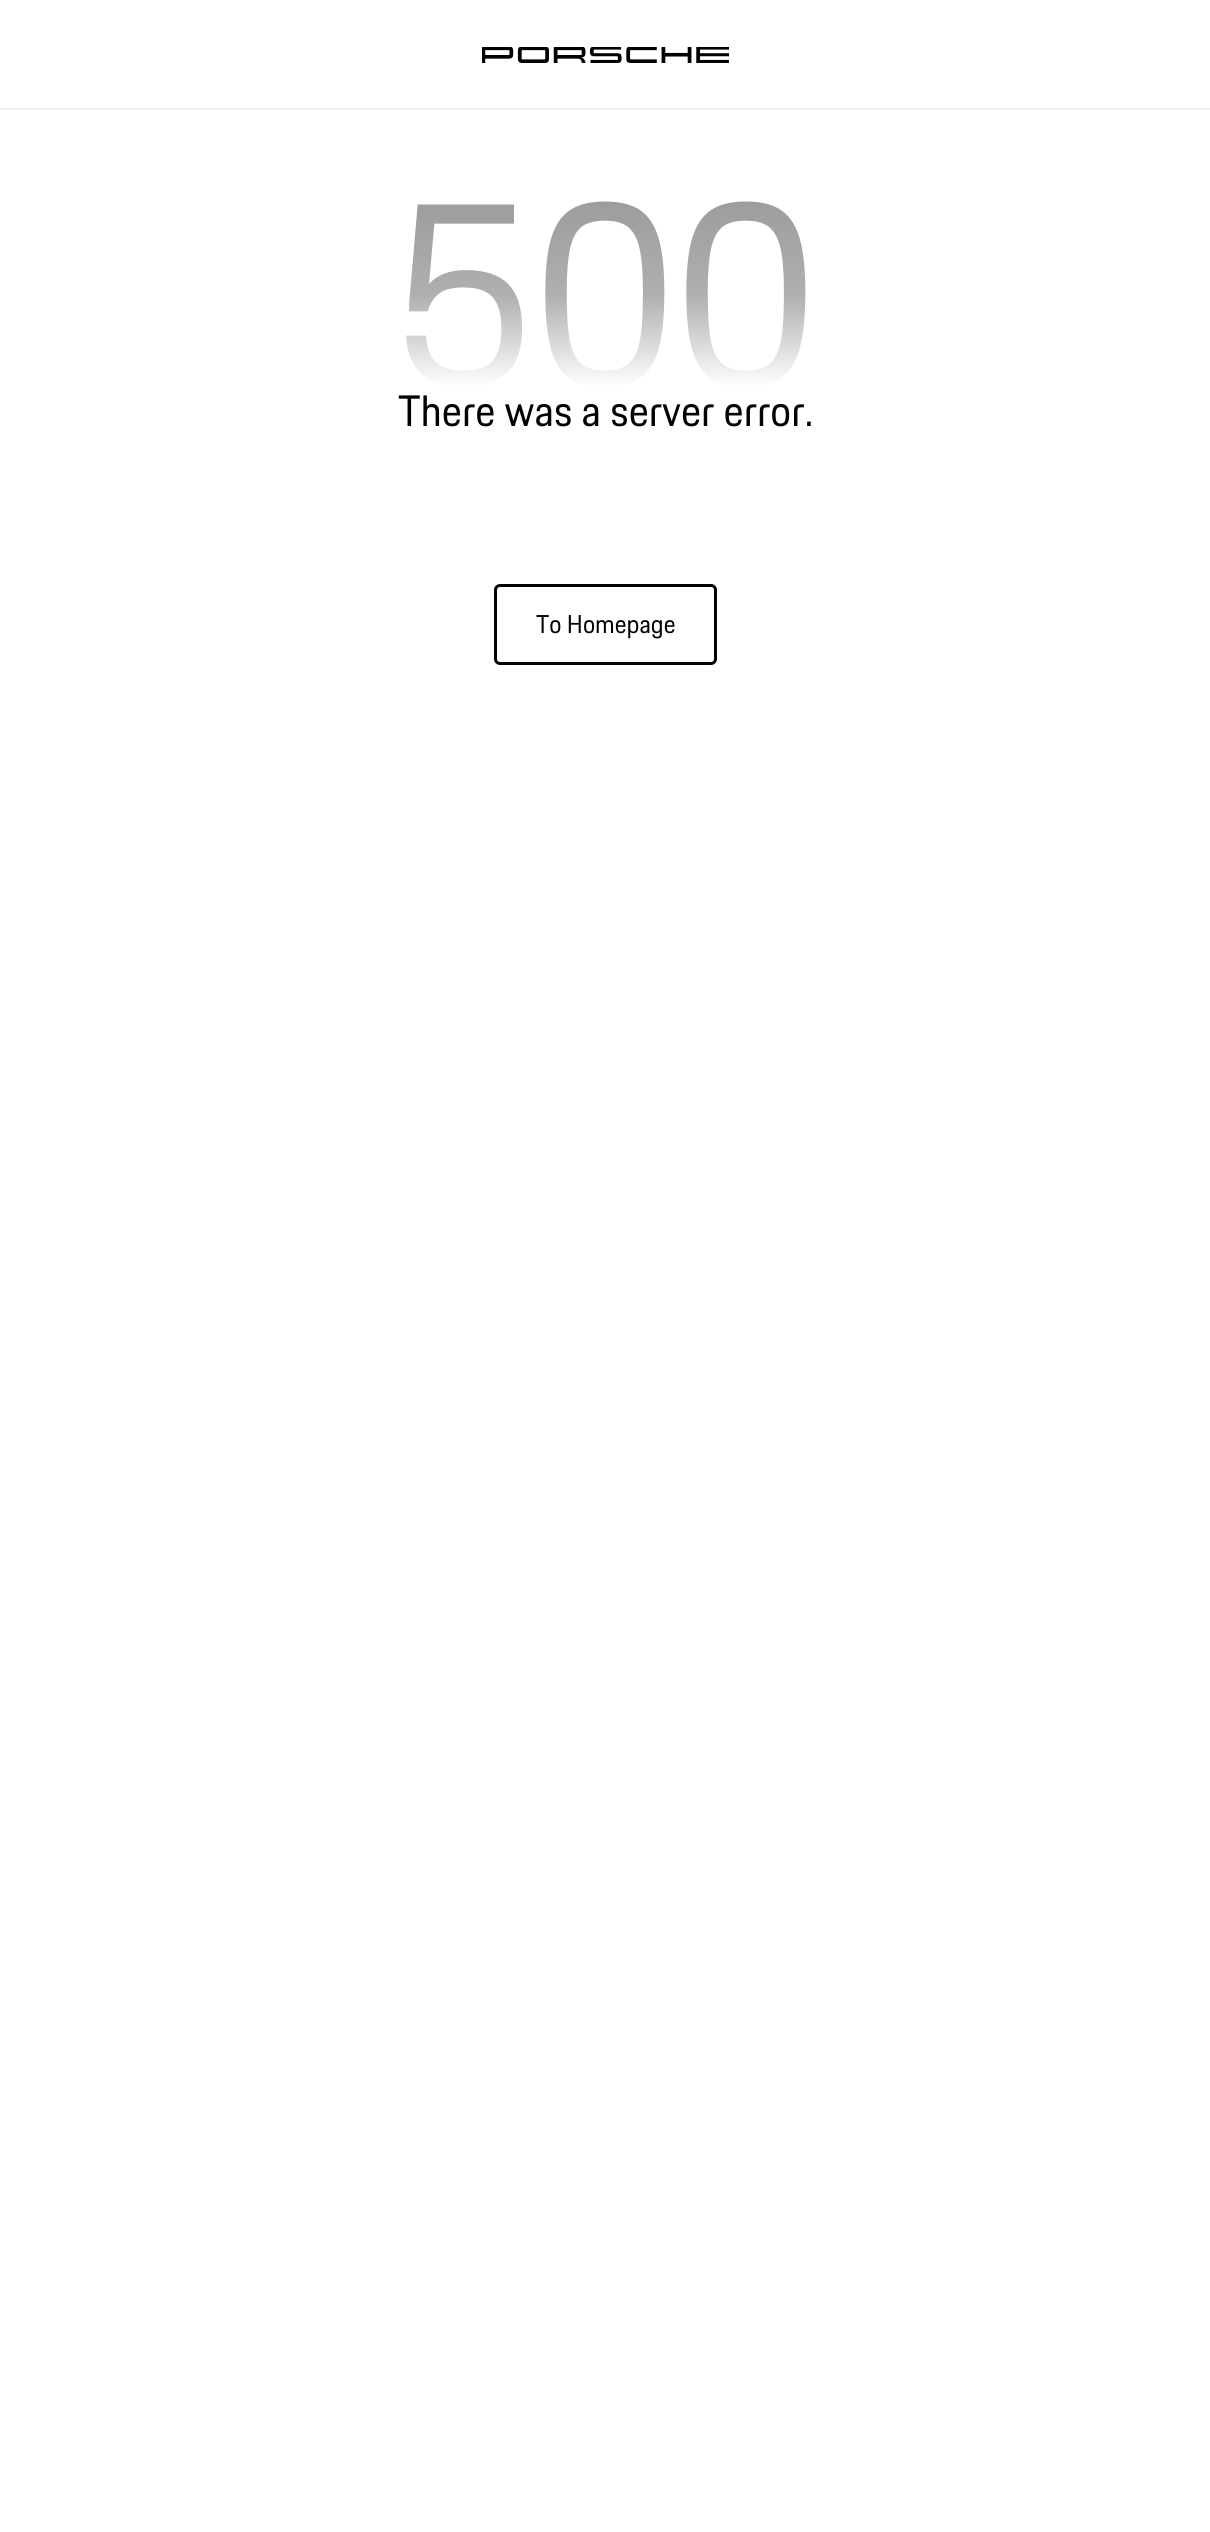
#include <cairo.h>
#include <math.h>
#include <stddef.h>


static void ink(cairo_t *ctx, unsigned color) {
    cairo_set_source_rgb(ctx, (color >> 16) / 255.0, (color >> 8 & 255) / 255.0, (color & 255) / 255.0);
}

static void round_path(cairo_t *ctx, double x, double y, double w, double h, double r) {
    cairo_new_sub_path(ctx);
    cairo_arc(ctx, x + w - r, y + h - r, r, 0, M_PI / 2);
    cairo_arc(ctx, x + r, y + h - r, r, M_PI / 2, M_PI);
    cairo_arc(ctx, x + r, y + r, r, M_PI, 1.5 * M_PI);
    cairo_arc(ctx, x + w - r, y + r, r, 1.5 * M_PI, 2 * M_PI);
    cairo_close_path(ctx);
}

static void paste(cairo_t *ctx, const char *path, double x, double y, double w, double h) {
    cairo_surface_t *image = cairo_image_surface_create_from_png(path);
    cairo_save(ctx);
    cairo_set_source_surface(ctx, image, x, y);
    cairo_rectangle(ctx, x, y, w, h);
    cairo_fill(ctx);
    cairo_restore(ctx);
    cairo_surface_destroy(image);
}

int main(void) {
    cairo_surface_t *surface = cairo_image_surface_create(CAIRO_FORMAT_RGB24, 1210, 2532);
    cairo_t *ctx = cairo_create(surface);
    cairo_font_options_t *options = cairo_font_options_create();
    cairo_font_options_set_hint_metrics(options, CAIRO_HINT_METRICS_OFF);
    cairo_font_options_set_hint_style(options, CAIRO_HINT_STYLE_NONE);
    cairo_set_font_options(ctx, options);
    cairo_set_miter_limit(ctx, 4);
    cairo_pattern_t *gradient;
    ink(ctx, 0xFFFFFF);
    cairo_paint(ctx);
    ink(ctx, 0xEEEFF2);
    cairo_rectangle(ctx, 0, 108, 1210, 2);
    cairo_fill(ctx);
    paste(ctx, "media/1.png", 482, 47, 247, 16);
    cairo_select_font_face(ctx, "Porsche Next", CAIRO_FONT_SLANT_NORMAL, CAIRO_FONT_WEIGHT_NORMAL);
    cairo_set_font_size(ctx, 240);
    gradient = cairo_pattern_create_linear(605, 109, 605, 480);
    cairo_pattern_add_color_stop_rgba(gradient, 0, 0.412, 0.412, 0.412, 1);
    cairo_pattern_add_color_stop_rgba(gradient, 0.25, 0.616, 0.616, 0.616, 1);
    cairo_pattern_add_color_stop_rgba(gradient, 0.5, 0.686, 0.686, 0.686, 1);
    cairo_pattern_add_color_stop_rgba(gradient, 0.75, 1, 1, 1, 1);
    cairo_pattern_add_color_stop_rgba(gradient, 1, 1, 1, 1, 1);
    cairo_set_source(ctx, gradient);
    cairo_pattern_destroy(gradient);
    cairo_move_to(ctx, 393, 384);
    cairo_show_text(ctx, "500");
    cairo_set_font_size(ctx, 40.9);
    ink(ctx, 0x010205);
    cairo_move_to(ctx, 398, 426);
    cairo_show_text(ctx, "There was a server error.");
    round_path(ctx, 495.5, 585.5, 220, 78, 4.5);
    cairo_set_line_width(ctx, 3);
    cairo_stroke(ctx);
    cairo_set_font_size(ctx, 24);
    cairo_move_to(ctx, 536, 633);
    cairo_show_text(ctx, "To Homepage");
    cairo_surface_write_to_png(surface, "image.png");
    cairo_font_options_destroy(options);
    cairo_destroy(ctx);
    cairo_surface_destroy(surface);
    return 0;
}
